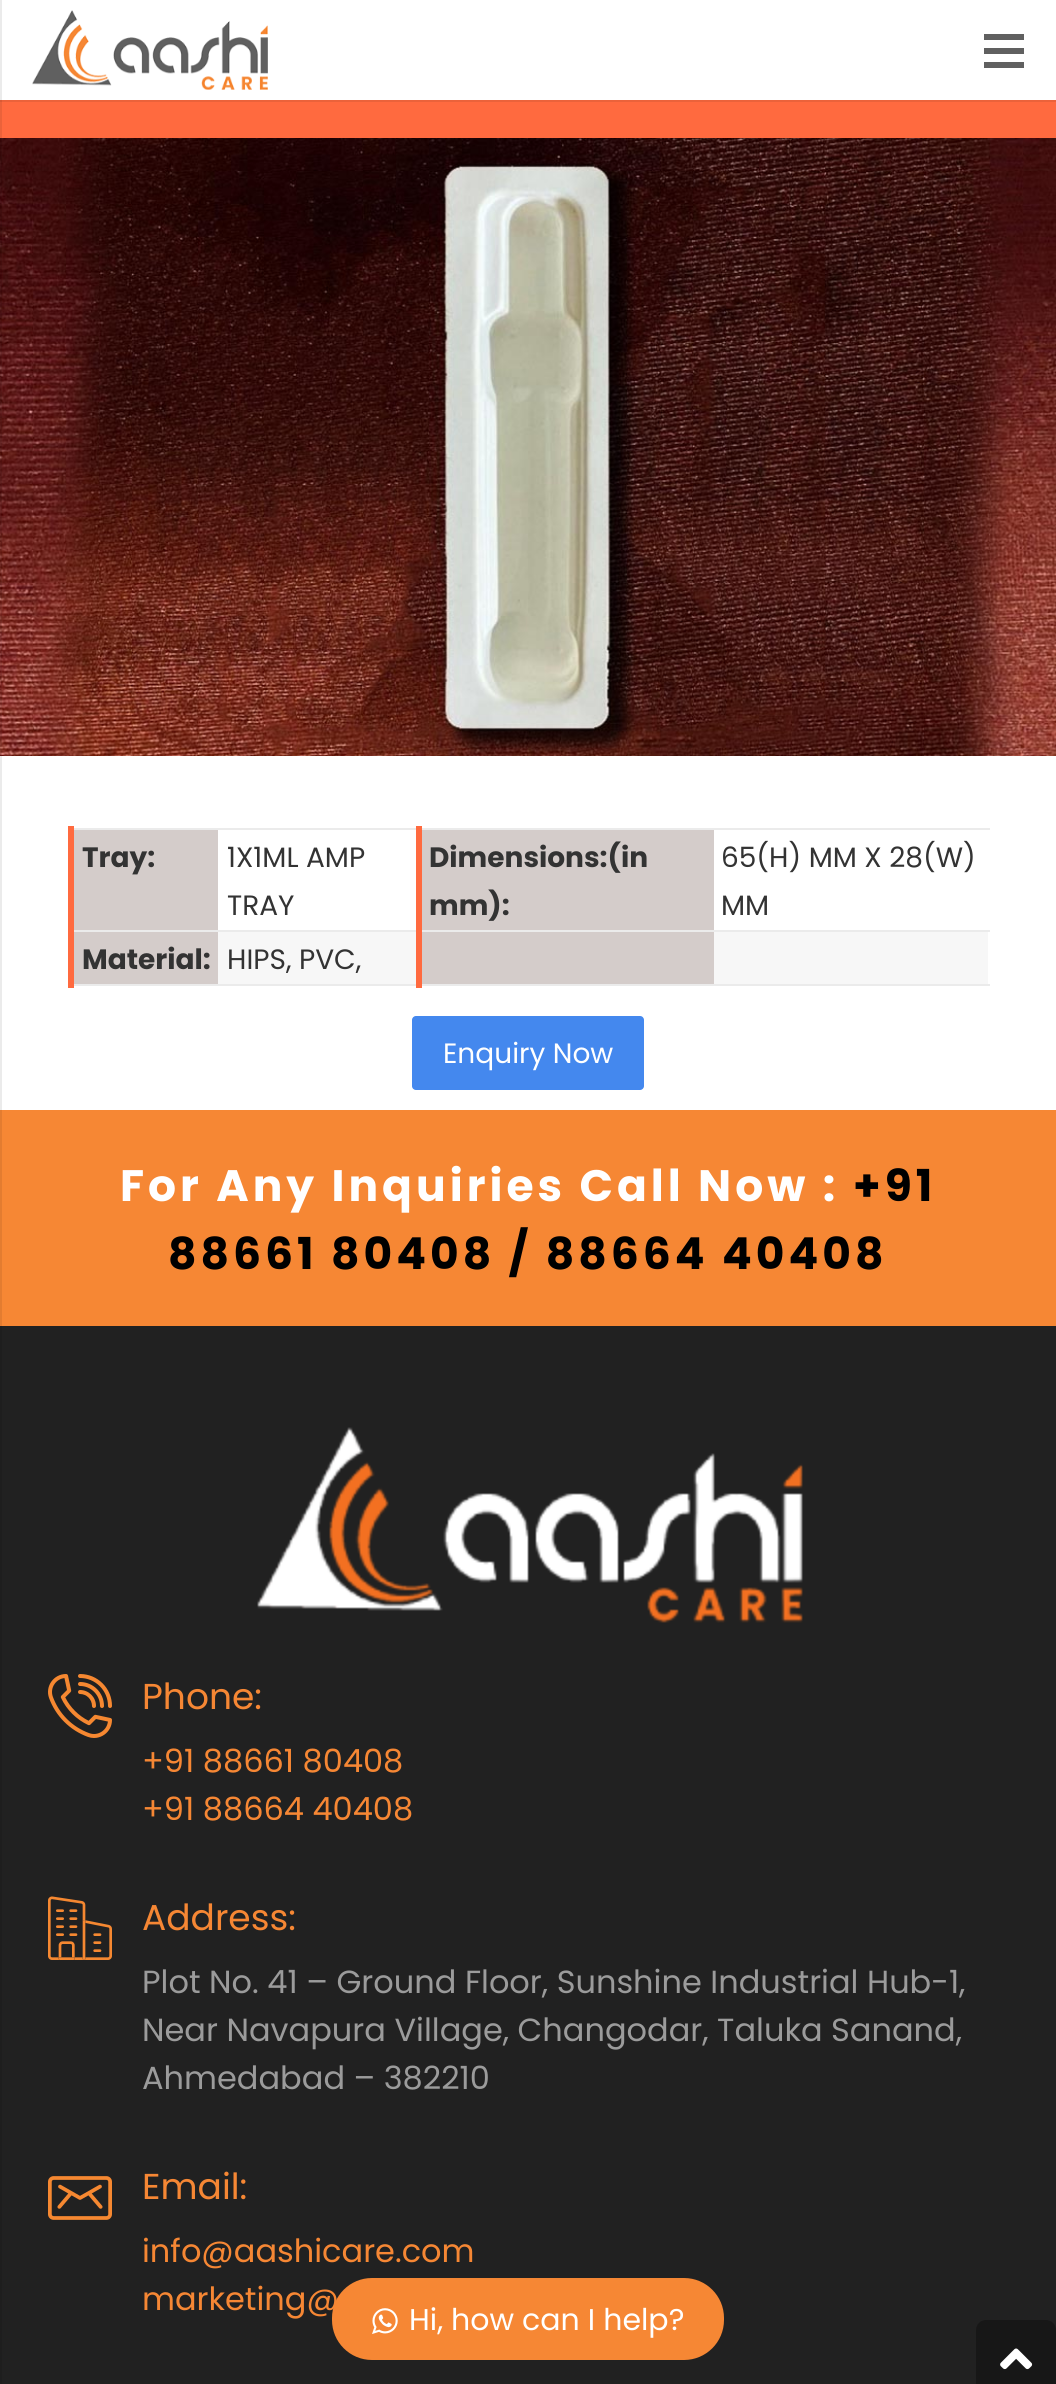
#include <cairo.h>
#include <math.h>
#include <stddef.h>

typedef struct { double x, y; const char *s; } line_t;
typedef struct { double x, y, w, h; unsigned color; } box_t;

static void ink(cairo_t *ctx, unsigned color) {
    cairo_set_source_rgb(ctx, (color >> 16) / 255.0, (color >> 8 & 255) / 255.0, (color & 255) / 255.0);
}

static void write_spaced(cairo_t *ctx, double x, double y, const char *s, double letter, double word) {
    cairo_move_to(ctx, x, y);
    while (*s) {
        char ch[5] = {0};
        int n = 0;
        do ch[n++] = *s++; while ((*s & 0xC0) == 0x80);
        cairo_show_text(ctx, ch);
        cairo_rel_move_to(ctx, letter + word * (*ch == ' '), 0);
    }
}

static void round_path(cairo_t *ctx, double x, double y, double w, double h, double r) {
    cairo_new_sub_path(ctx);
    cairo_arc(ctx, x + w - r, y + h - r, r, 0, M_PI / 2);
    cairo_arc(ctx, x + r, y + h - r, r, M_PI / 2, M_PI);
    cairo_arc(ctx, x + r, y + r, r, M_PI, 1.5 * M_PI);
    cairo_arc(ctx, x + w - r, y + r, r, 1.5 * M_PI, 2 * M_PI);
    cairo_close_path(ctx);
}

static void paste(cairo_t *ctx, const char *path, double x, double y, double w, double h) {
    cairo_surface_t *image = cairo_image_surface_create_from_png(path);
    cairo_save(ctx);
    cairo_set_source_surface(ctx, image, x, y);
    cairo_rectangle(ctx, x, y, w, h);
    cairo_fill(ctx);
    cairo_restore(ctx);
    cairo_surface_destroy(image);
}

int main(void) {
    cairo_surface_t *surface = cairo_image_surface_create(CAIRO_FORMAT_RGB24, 1056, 2384);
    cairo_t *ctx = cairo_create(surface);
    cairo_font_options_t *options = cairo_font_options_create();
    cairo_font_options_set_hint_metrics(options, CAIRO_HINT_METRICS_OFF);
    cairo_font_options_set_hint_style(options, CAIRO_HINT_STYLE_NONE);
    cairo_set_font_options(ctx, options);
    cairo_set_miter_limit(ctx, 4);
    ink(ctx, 0xFFFFFF);
    cairo_paint(ctx);
    ink(ctx, 0xFF6A3F);
    cairo_rectangle(ctx, 0, 100, 1056, 38);
    cairo_fill(ctx);
    cairo_set_source_rgba(ctx, 0, 0, 0, 0.08);
    cairo_rectangle(ctx, 0, 100, 1056, 2);
    cairo_fill(ctx);
    paste(ctx, "media/2.png", 0, 138, 1056, 618);
    ink(ctx, 0xF68734);
    cairo_rectangle(ctx, 0, 1110, 1056, 216);
    cairo_fill(ctx);
    ink(ctx, 0x212121);
    cairo_rectangle(ctx, 0, 1326, 1056, 1058);
    cairo_fill(ctx);
    cairo_set_source_rgba(ctx, 0, 0, 0, 0.08);
    cairo_rectangle(ctx, 0, 0, 2, 2384);
    cairo_fill(ctx);
    ink(ctx, 0x606060);
    cairo_rectangle(ctx, 984, 48, 40, 6);
    cairo_fill(ctx);
    cairo_rectangle(ctx, 984, 34, 40, 6);
    cairo_fill(ctx);
    cairo_rectangle(ctx, 984, 62, 40, 6);
    cairo_fill(ctx);
    paste(ctx, "media/1.png", 32, 10, 236, 80);
    ink(ctx, 0xEBEBEB);
    cairo_rectangle(ctx, 70, 828, 920, 2);
    cairo_fill(ctx);
    ink(ctx, 0xD4CCCA);
    cairo_rectangle(ctx, 74, 830, 144, 100);
    cairo_fill(ctx);
    cairo_select_font_face(ctx, "Poppins", CAIRO_FONT_SLANT_NORMAL, CAIRO_FONT_WEIGHT_BOLD);
    cairo_set_font_size(ctx, 28);
    ink(ctx, 0x333333);
    cairo_move_to(ctx, 82, 867);
    cairo_show_text(ctx, "Tray:");
    cairo_select_font_face(ctx, "Poppins", CAIRO_FONT_SLANT_NORMAL, CAIRO_FONT_WEIGHT_NORMAL);
    cairo_move_to(ctx, 227, 867);
    cairo_show_text(ctx, "1X1ML AMP");
    cairo_move_to(ctx, 227, 915);
    cairo_show_text(ctx, "TRAY");
    ink(ctx, 0xD4CCCA);
    cairo_rectangle(ctx, 422, 830, 292, 100);
    cairo_fill(ctx);
    cairo_select_font_face(ctx, "Poppins", CAIRO_FONT_SLANT_NORMAL, CAIRO_FONT_WEIGHT_BOLD);
    ink(ctx, 0x333333);
    cairo_move_to(ctx, 429, 867);
    cairo_show_text(ctx, "Dimensions:(in");
    cairo_move_to(ctx, 429, 915);
    cairo_show_text(ctx, "mm):");
    ink(ctx, 0xEBEBEB);
    cairo_rectangle(ctx, 70, 930, 920, 2);
    cairo_fill(ctx);
    cairo_select_font_face(ctx, "Poppins", CAIRO_FONT_SLANT_NORMAL, CAIRO_FONT_WEIGHT_NORMAL);
    ink(ctx, 0x333333);
    cairo_move_to(ctx, 721, 867);
    cairo_show_text(ctx, "65(H) MM X 28(W)");
    cairo_move_to(ctx, 721, 915);
    cairo_show_text(ctx, "MM");
    {
        static const box_t items[] = {
            {422, 932, 292, 52, 0xD4CCCA},
            {70, 984, 920, 2, 0xEBEBEB},
            {416, 826, 6, 162, 0xFF6A3F},
            {714, 932, 274, 52, 0xF7F7F7},
            {74, 932, 144, 52, 0xD4CCCA},
            {68, 826, 6, 162, 0xFF6A3F},
        };
        for (size_t i = 0; i < sizeof items / sizeof *items; i++) {
            ink(ctx, items[i].color);
            cairo_rectangle(ctx, items[i].x, items[i].y, items[i].w, items[i].h);
            cairo_fill(ctx);
        }
    }
    cairo_select_font_face(ctx, "Poppins", CAIRO_FONT_SLANT_NORMAL, CAIRO_FONT_WEIGHT_BOLD);
    ink(ctx, 0x333333);
    cairo_move_to(ctx, 82, 969);
    cairo_show_text(ctx, "Material:");
    ink(ctx, 0xF7F7F7);
    cairo_rectangle(ctx, 218, 932, 198, 52);
    cairo_fill(ctx);
    cairo_select_font_face(ctx, "Poppins", CAIRO_FONT_SLANT_NORMAL, CAIRO_FONT_WEIGHT_NORMAL);
    ink(ctx, 0x333333);
    cairo_move_to(ctx, 227, 969);
    cairo_show_text(ctx, "HIPS, PVC,");
    ink(ctx, 0x4488EE);
    round_path(ctx, 412, 1016, 232, 74, 4);
    cairo_fill(ctx);
    ink(ctx, 0xFFFFFF);
    cairo_move_to(ctx, 443, 1063);
    cairo_show_text(ctx, "Enquiry Now");
    cairo_select_font_face(ctx, "Poppins", CAIRO_FONT_SLANT_NORMAL, CAIRO_FONT_WEIGHT_BOLD);
    cairo_set_font_size(ctx, 44);
    write_spaced(ctx, 120, 1201, "For Any Inquiries Call Now :", 4, 0);
    ink(ctx, 0x000000);
    write_spaced(ctx, 853, 1201, "+91", 4, 0);
    write_spaced(ctx, 168, 1269, "88661 80408 / 88664 40408", 4, 0);
    paste(ctx, "media/3.png", 257, 1427, 546, 196);
    paste(ctx, "media/4.png", 48, 1674, 64, 64);
    cairo_select_font_face(ctx, "Poppins", CAIRO_FONT_SLANT_NORMAL, CAIRO_FONT_WEIGHT_NORMAL);
    cairo_set_font_size(ctx, 36);
    ink(ctx, 0xF68734);
    cairo_move_to(ctx, 142, 1709);
    cairo_show_text(ctx, "Phone:");
    cairo_set_font_size(ctx, 32);
    cairo_move_to(ctx, 142, 1772);
    cairo_show_text(ctx, "+91 88661 80408");
    cairo_move_to(ctx, 142, 1820);
    cairo_show_text(ctx, "+91 88664 40408");
    paste(ctx, "media/5.png", 48, 1896, 64, 64);
    cairo_set_font_size(ctx, 36);
    cairo_move_to(ctx, 142, 1930);
    cairo_show_text(ctx, "Address:");
    cairo_set_font_size(ctx, 32);
    ink(ctx, 0x9B9B9B);
    {
        static const line_t items[] = {
            {142, 1993, "Plot No. 41 – Ground Floor, Sunshine Industrial Hub-1,"},
            {142, 2041, "Near Navapura Village, Changodar, Taluka Sanand,"},
            {142, 2089, "Ahmedabad – 382210"},
        };
        for (size_t i = 0; i < sizeof items / sizeof *items; i++) {
            cairo_move_to(ctx, items[i].x, items[i].y);
            cairo_show_text(ctx, items[i].s);
        }
    }
    paste(ctx, "media/6.png", 48, 2176, 64, 44);
    cairo_set_font_size(ctx, 36);
    ink(ctx, 0xF68734);
    cairo_move_to(ctx, 142, 2199);
    cairo_show_text(ctx, "Email:");
    cairo_set_font_size(ctx, 32);
    cairo_move_to(ctx, 142, 2262);
    cairo_show_text(ctx, "info@aashicare.com");
    cairo_move_to(ctx, 142, 2310);
    cairo_show_text(ctx, "marketing@");
    round_path(ctx, 332, 2278, 392, 82, 40);
    cairo_fill(ctx);
    paste(ctx, "media/7.png", 372, 2308, 26, 26);
    cairo_set_font_size(ctx, 30);
    ink(ctx, 0xFFFFFF);
    cairo_move_to(ctx, 409, 2330);
    cairo_show_text(ctx, "Hi, how can I help?");
    ink(ctx, 0x171717);
    round_path(ctx, 976, 2320, 80, 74, 10);
    cairo_fill(ctx);
    paste(ctx, "media/8.png", 1000, 2348, 33, 22);
    cairo_surface_write_to_png(surface, "image.png");
    cairo_font_options_destroy(options);
    cairo_destroy(ctx);
    cairo_surface_destroy(surface);
    return 0;
}
